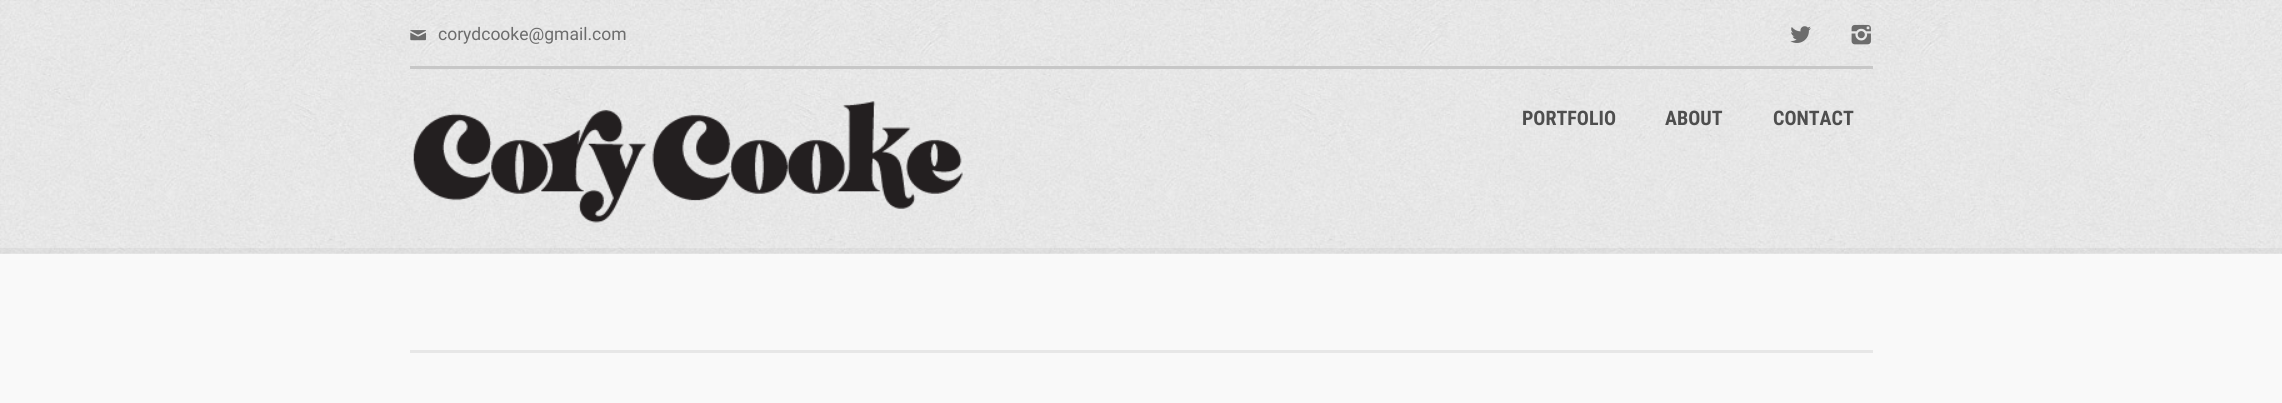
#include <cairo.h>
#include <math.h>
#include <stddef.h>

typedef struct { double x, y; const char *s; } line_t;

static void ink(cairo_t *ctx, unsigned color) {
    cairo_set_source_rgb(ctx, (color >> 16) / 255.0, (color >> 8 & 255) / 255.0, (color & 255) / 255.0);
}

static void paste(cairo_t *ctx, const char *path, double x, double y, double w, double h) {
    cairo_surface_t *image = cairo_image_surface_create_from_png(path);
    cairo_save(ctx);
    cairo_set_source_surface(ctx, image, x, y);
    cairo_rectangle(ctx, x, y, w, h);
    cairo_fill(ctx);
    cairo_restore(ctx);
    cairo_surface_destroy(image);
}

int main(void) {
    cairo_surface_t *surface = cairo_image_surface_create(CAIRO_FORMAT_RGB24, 2282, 403);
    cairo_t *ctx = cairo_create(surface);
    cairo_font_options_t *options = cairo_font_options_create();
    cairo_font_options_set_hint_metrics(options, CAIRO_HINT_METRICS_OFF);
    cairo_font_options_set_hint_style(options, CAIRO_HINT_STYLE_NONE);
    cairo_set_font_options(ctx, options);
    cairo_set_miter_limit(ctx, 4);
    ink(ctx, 0xF9F9F9);
    cairo_paint(ctx);
    paste(ctx, "media/1.png", 0, 0, 2282, 254);
    cairo_set_source_rgba(ctx, 0, 0, 0, 0.04);
    cairo_rectangle(ctx, 0, 248, 2282, 6);
    cairo_fill(ctx);
    paste(ctx, "media/2.png", 410, 30, 16, 11);
    cairo_select_font_face(ctx, "Roboto", CAIRO_FONT_SLANT_NORMAL, CAIRO_FONT_WEIGHT_NORMAL);
    cairo_set_font_size(ctx, 17.5);
    ink(ctx, 0x6C6C6C);
    cairo_move_to(ctx, 438, 40);
    cairo_show_text(ctx, "corydcooke@gmail.com");
    paste(ctx, "media/3.png", 1790, 26, 21, 17);
    paste(ctx, "media/4.png", 1851, 24, 20, 21);
    ink(ctx, 0xC7C7C7);
    cairo_rectangle(ctx, 410, 66, 1463, 3);
    cairo_fill(ctx);
    paste(ctx, "media/5.png", 413, 101, 550, 122);
    cairo_select_font_face(ctx, "Roboto Condensed", CAIRO_FONT_SLANT_NORMAL, CAIRO_FONT_WEIGHT_BOLD);
    cairo_set_font_size(ctx, 20);
    ink(ctx, 0x4E4E4E);
    {
        static const line_t items[] = {
            {1522, 125, "PORTFOLIO"},
            {1665, 125, "ABOUT"},
            {1773, 125, "CONTACT"},
        };
        for (size_t i = 0; i < sizeof items / sizeof *items; i++) {
            cairo_move_to(ctx, items[i].x, items[i].y);
            cairo_show_text(ctx, items[i].s);
        }
    }
    ink(ctx, 0xE7E7E7);
    cairo_rectangle(ctx, 410, 350, 1463, 3);
    cairo_fill(ctx);
    cairo_surface_write_to_png(surface, "image.png");
    cairo_font_options_destroy(options);
    cairo_destroy(ctx);
    cairo_surface_destroy(surface);
    return 0;
}
